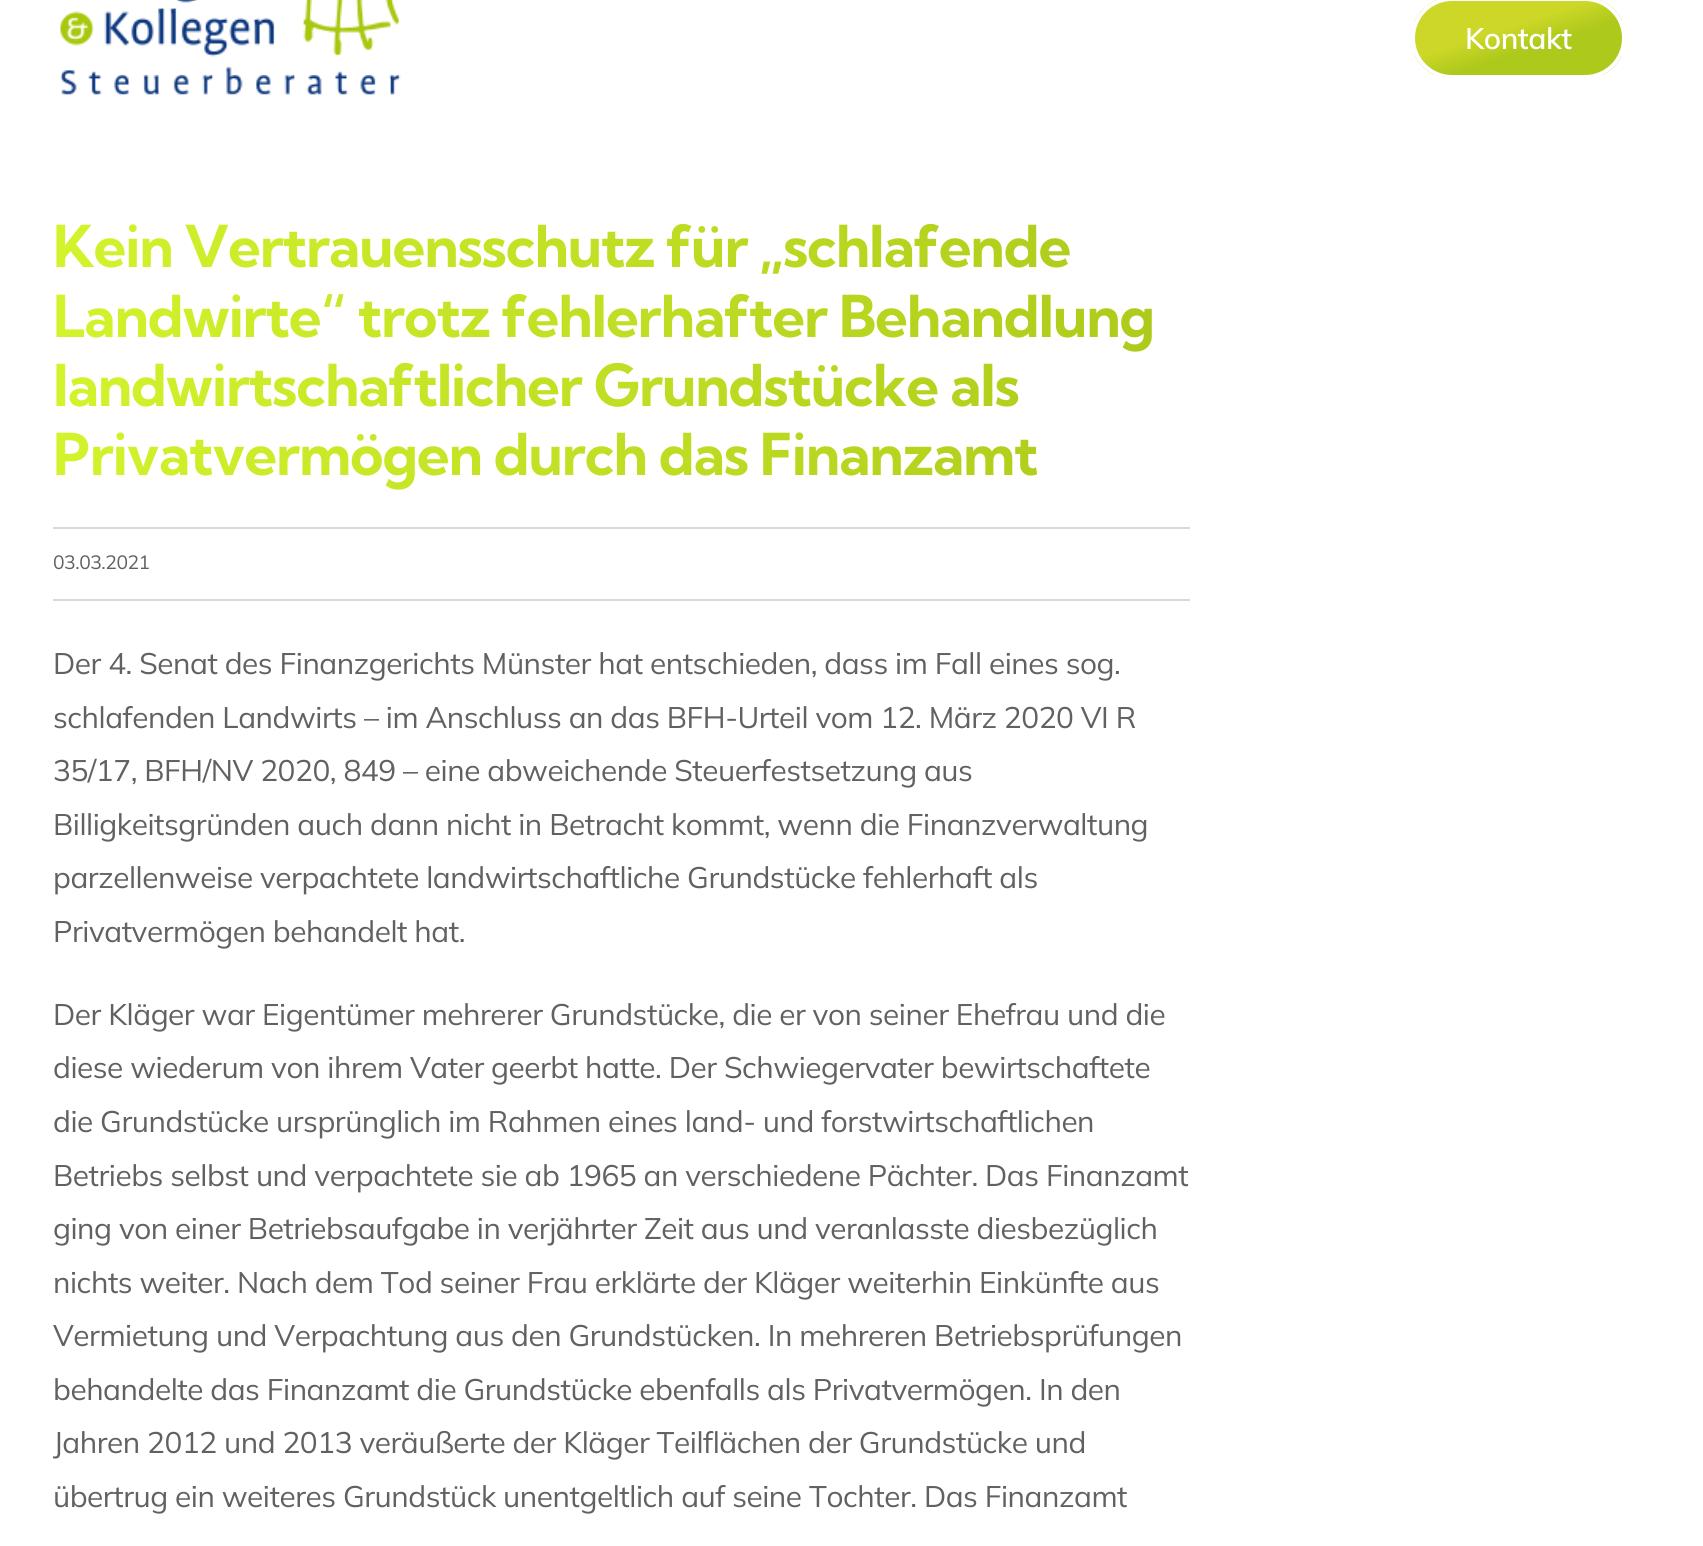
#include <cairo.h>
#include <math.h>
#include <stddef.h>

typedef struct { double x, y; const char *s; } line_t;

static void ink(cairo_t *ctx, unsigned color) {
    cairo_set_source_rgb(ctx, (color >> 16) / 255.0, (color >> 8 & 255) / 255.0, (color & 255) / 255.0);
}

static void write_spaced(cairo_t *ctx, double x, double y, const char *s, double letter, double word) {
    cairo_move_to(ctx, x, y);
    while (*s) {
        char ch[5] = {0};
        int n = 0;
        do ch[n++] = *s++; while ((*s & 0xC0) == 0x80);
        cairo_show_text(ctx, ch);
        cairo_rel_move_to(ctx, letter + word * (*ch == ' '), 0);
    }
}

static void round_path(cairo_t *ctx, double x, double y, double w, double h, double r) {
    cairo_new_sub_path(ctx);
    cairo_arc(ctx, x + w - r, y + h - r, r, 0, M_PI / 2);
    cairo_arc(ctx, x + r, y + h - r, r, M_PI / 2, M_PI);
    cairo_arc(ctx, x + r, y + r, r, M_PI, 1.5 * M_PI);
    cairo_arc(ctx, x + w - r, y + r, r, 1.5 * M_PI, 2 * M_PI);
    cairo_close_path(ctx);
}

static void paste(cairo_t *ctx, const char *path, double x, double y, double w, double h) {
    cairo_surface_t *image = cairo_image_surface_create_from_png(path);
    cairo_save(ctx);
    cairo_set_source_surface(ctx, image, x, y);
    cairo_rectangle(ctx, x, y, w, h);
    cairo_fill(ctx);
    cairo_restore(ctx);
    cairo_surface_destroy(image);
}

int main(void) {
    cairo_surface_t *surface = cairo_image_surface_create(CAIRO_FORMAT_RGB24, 1703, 1546);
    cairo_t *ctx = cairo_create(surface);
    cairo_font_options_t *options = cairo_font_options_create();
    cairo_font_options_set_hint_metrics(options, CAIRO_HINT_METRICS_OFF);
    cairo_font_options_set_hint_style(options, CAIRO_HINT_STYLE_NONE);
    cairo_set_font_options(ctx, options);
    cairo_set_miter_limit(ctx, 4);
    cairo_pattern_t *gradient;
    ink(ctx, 0xFFFFFF);
    cairo_paint(ctx);
    paste(ctx, "media/1.png", 60, 0, 341, 95);
    cairo_save(ctx);
    round_path(ctx, 1411, -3, 215, 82, 41);
    cairo_clip(ctx);
    gradient = cairo_pattern_create_linear(1497, -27, 1539, 102);
    cairo_pattern_add_color_stop_rgba(gradient, 0.41, 0.8, 0.843, 0.153, 1);
    cairo_pattern_add_color_stop_rgba(gradient, 0.61, 0.678, 0.788, 0.11, 1);
    cairo_set_source(ctx, gradient);
    cairo_pattern_destroy(gradient);
    cairo_rectangle(ctx, 1414, 0, 208, 75);
    cairo_fill(ctx);
    cairo_restore(ctx);
    round_path(ctx, 1413, -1, 211, 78, 39);
    ink(ctx, 0xFFFFFF);
    cairo_set_line_width(ctx, 4);
    cairo_stroke(ctx);
    cairo_select_font_face(ctx, "Mulish SemiBold", CAIRO_FONT_SLANT_NORMAL, CAIRO_FONT_WEIGHT_NORMAL);
    cairo_set_font_size(ctx, 29.75);
    write_spaced(ctx, 1465, 49, "Kontakt", -0.45, 0);
    cairo_select_font_face(ctx, "Kumbh Sans", CAIRO_FONT_SLANT_NORMAL, CAIRO_FONT_WEIGHT_BOLD);
    cairo_set_font_size(ctx, 57.75);
    gradient = cairo_pattern_create_linear(53, 350, 1191, 350);
    cairo_pattern_add_color_stop_rgba(gradient, 0, 0.827, 0.953, 0.173, 1);
    cairo_pattern_add_color_stop_rgba(gradient, 1, 0.678, 0.788, 0.102, 1);
    cairo_set_source(ctx, gradient);
    cairo_pattern_destroy(gradient);
    {
        static const line_t items[] = {
            {53, 267, "Kein Vertrauensschutz für „schlafende"},
            {53, 337, "Landwirte“ trotz fehlerhafter Behandlung"},
            {53, 406, "landwirtschaftlicher Grundstücke als"},
            {53, 475, "Privatvermögen durch das Finanzamt"},
        };
        for (size_t i = 0; i < sizeof items / sizeof *items; i++) {
            write_spaced(ctx, items[i].x, items[i].y, items[i].s, -1.15, 0);
        }
    }
    ink(ctx, 0xD9D9D9);
    cairo_rectangle(ctx, 53, 527, 1137, 2);
    cairo_fill(ctx);
    cairo_rectangle(ctx, 53, 599, 1137, 2);
    cairo_fill(ctx);
    cairo_select_font_face(ctx, "Mulish", CAIRO_FONT_SLANT_NORMAL, CAIRO_FONT_WEIGHT_NORMAL);
    cairo_set_font_size(ctx, 19.25);
    ink(ctx, 0x616161);
    write_spaced(ctx, 53, 569, "03.03.2021", -0.45, 0);
    cairo_set_font_size(ctx, 29.75);
    {
        static const line_t items[] = {
            {53, 674, "Der 4. Senat des Finanzgerichts Münster hat entschieden, dass im Fall eines sog."},
            {53, 728, "schlafenden Landwirts – im Anschluss an das BFH-Urteil vom 12. März 2020 VI R"},
            {53, 781, "35/17, BFH/NV 2020, 849 – eine abweichende Steuerfestsetzung aus"},
            {53, 835, "Billigkeitsgründen auch dann nicht in Betracht kommt, wenn die Finanzverwaltung"},
            {53, 888, "parzellenweise verpachtete landwirtschaftliche Grundstücke fehlerhaft als"},
            {53, 942, "Privatvermögen behandelt hat."},
            {53, 1025, "Der Kläger war Eigentümer mehrerer Grundstücke, die er von seiner Ehefrau und die"},
            {53, 1078, "diese wiederum von ihrem Vater geerbt hatte. Der Schwiegervater bewirtschaftete"},
            {53, 1132, "die Grundstücke ursprünglich im Rahmen eines land- und forstwirtschaftlichen"},
            {53, 1186, "Betriebs selbst und verpachtete sie ab 1965 an verschiedene Pächter. Das Finanzamt"},
            {53, 1239, "ging von einer Betriebsaufgabe in verjährter Zeit aus und veranlasste diesbezüglich"},
            {53, 1293, "nichts weiter. Nach dem Tod seiner Frau erklärte der Kläger weiterhin Einkünfte aus"},
            {53, 1346, "Vermietung und Verpachtung aus den Grundstücken. In mehreren Betriebsprüfungen"},
            {53, 1400, "behandelte das Finanzamt die Grundstücke ebenfalls als Privatvermögen. In den"},
        };
        for (size_t i = 0; i < sizeof items / sizeof *items; i++) {
            write_spaced(ctx, items[i].x, items[i].y, items[i].s, -0.45, 0);
        }
    }
    cairo_save(ctx);
    cairo_rectangle(ctx, 53, 212, 1137, 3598);
    cairo_clip(ctx);
    write_spaced(ctx, 53, 1453, "Jahren 2012 und 2013 veräußerte der Kläger Teilflächen der Grundstücke und", -0.45, 0);
    cairo_restore(ctx);
    write_spaced(ctx, 53, 1507, "übertrug ein weiteres Grundstück unentgeltlich auf seine Tochter. Das Finanzamt", -0.45, 0);
    cairo_surface_write_to_png(surface, "image.png");
    cairo_font_options_destroy(options);
    cairo_destroy(ctx);
    cairo_surface_destroy(surface);
    return 0;
}
